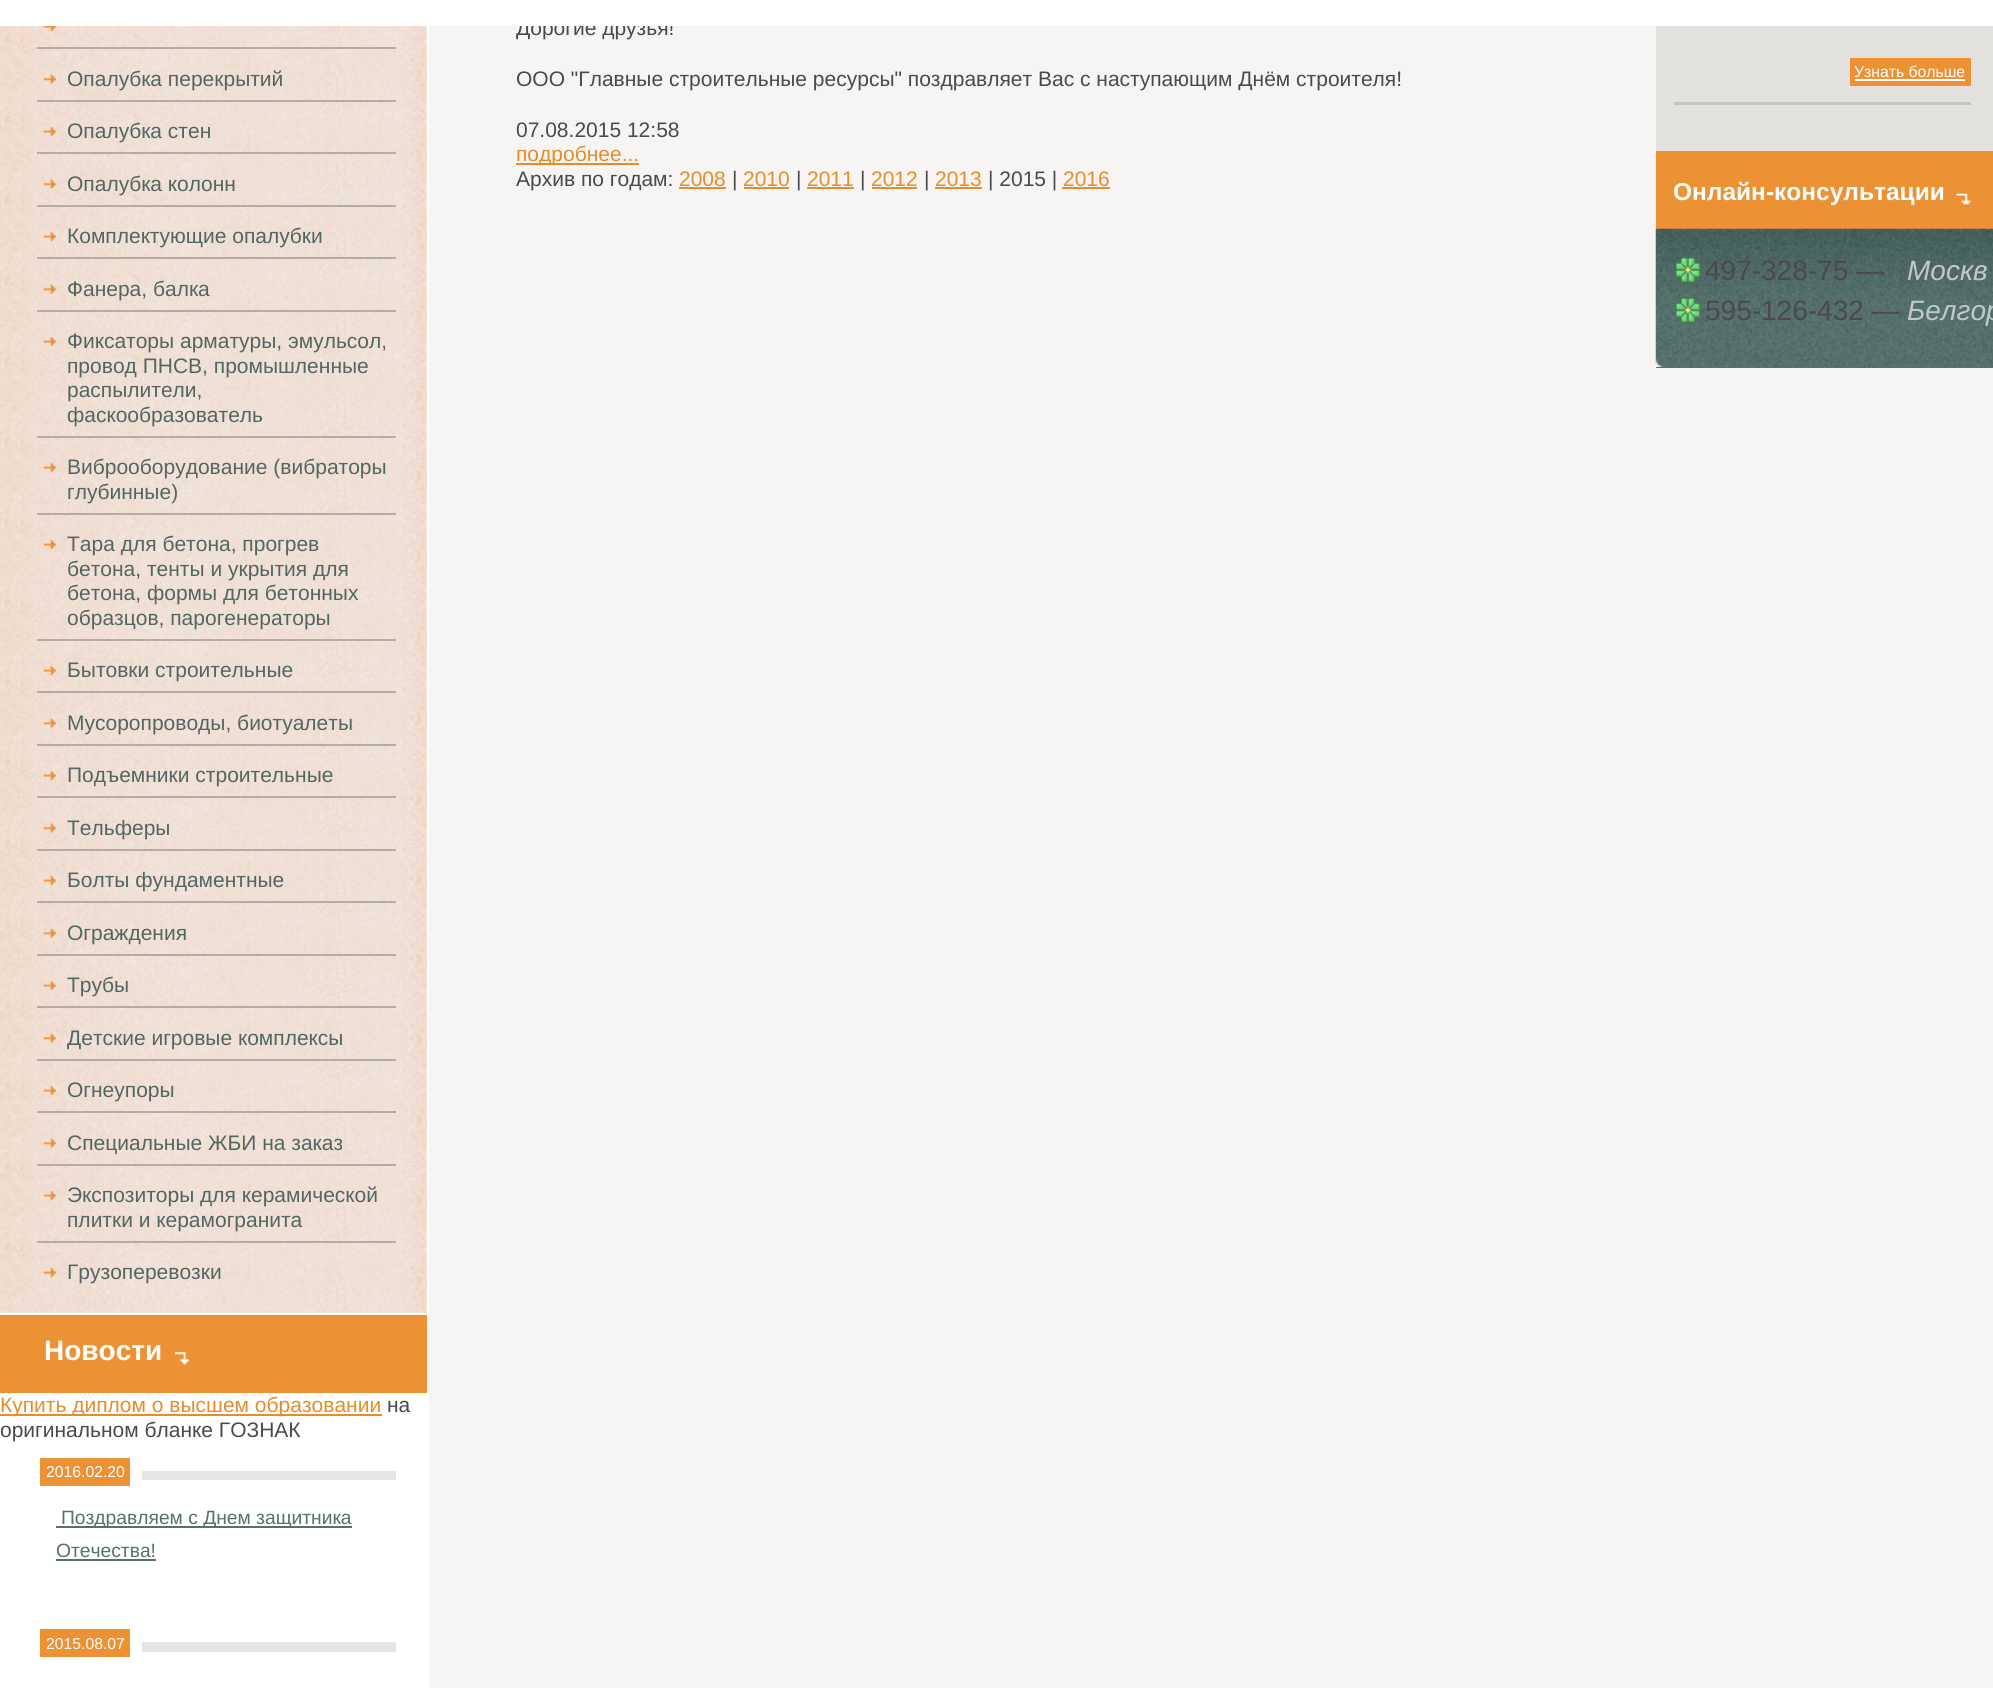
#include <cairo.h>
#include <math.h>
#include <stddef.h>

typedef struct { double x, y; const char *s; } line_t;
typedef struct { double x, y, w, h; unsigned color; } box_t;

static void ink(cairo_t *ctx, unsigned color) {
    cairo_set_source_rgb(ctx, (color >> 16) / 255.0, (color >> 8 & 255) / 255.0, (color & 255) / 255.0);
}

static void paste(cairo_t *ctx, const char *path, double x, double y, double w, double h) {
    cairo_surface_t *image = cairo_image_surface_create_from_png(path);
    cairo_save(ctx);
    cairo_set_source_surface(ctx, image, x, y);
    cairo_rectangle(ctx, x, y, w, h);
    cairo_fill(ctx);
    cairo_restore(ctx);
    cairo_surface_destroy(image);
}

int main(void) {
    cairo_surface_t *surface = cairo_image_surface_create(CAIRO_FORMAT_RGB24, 1993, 1688);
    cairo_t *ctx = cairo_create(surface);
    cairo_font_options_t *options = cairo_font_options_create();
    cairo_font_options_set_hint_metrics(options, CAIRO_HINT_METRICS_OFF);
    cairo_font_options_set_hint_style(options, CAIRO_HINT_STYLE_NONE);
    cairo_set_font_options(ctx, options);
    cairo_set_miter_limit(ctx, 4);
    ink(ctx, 0xFFFFFF);
    cairo_paint(ctx);
    ink(ctx, 0xF0DED2);
    cairo_rectangle(ctx, 0, 1312, 427, 1);
    cairo_fill(ctx);
    paste(ctx, "media/1.png", 0, 26, 427, 1286);
    paste(ctx, "media/2.png", 43, 26, 13, 5);
    ink(ctx, 0xB4ABA3);
    cairo_rectangle(ctx, 37, 47, 359, 2);
    cairo_fill(ctx);
    paste(ctx, "media/3.png", 43, 74, 13, 10);
    cairo_rectangle(ctx, 37, 100, 359, 2);
    cairo_fill(ctx);
    cairo_select_font_face(ctx, "Liberation Sans", CAIRO_FONT_SLANT_NORMAL, CAIRO_FONT_WEIGHT_NORMAL);
    cairo_set_font_size(ctx, 21);
    ink(ctx, 0x546661);
    cairo_move_to(ctx, 67, 86);
    cairo_show_text(ctx, "Опалубка перекрытий");
    paste(ctx, "media/4.png", 43, 127, 13, 9);
    ink(ctx, 0xB4ABA3);
    cairo_rectangle(ctx, 37, 152, 359, 2);
    cairo_fill(ctx);
    ink(ctx, 0x546661);
    cairo_move_to(ctx, 67, 138);
    cairo_show_text(ctx, "Опалубка стен");
    paste(ctx, "media/5.png", 43, 179, 13, 10);
    ink(ctx, 0xB4ABA3);
    cairo_rectangle(ctx, 37, 205, 359, 2);
    cairo_fill(ctx);
    ink(ctx, 0x546661);
    cairo_move_to(ctx, 67, 191);
    cairo_show_text(ctx, "Опалубка колонн");
    paste(ctx, "media/6.png", 43, 232, 13, 9);
    ink(ctx, 0xB4ABA3);
    cairo_rectangle(ctx, 37, 257, 359, 2);
    cairo_fill(ctx);
    ink(ctx, 0x546661);
    cairo_move_to(ctx, 67, 243);
    cairo_show_text(ctx, "Комплектующие опалубки");
    paste(ctx, "media/7.png", 43, 284, 13, 10);
    ink(ctx, 0xB4ABA3);
    cairo_rectangle(ctx, 37, 310, 359, 2);
    cairo_fill(ctx);
    ink(ctx, 0x546661);
    cairo_move_to(ctx, 67, 296);
    cairo_show_text(ctx, "Фанера, балка");
    paste(ctx, "media/8.png", 43, 337, 13, 9);
    ink(ctx, 0xB4ABA3);
    cairo_rectangle(ctx, 37, 436, 359, 2);
    cairo_fill(ctx);
    ink(ctx, 0x546661);
    {
        static const line_t items[] = {
            {67, 348, "Фиксаторы арматуры, эмульсол,"},
            {67, 373, "провод ПНСВ, промышленные"},
            {67, 397, "распылители,"},
            {67, 422, "фаскообразователь"},
        };
        for (size_t i = 0; i < sizeof items / sizeof *items; i++) {
            cairo_move_to(ctx, items[i].x, items[i].y);
            cairo_show_text(ctx, items[i].s);
        }
    }
    paste(ctx, "media/9.png", 43, 463, 13, 9);
    ink(ctx, 0xB4ABA3);
    cairo_rectangle(ctx, 37, 513, 359, 2);
    cairo_fill(ctx);
    ink(ctx, 0x546661);
    cairo_move_to(ctx, 67, 474);
    cairo_show_text(ctx, "Виброоборудование (вибраторы");
    cairo_move_to(ctx, 67, 499);
    cairo_show_text(ctx, "глубинные)");
    paste(ctx, "media/10.png", 43, 540, 13, 9);
    ink(ctx, 0xB4ABA3);
    cairo_rectangle(ctx, 37, 639, 359, 2);
    cairo_fill(ctx);
    ink(ctx, 0x546661);
    {
        static const line_t items[] = {
            {67, 551, "Тара для бетона, прогрев"},
            {67, 576, "бетона, тенты и укрытия для"},
            {67, 600, "бетона, формы для бетонных"},
            {67, 625, "образцов, парогенераторы"},
        };
        for (size_t i = 0; i < sizeof items / sizeof *items; i++) {
            cairo_move_to(ctx, items[i].x, items[i].y);
            cairo_show_text(ctx, items[i].s);
        }
    }
    paste(ctx, "media/11.png", 43, 666, 13, 9);
    ink(ctx, 0xB4ABA3);
    cairo_rectangle(ctx, 37, 691, 359, 2);
    cairo_fill(ctx);
    ink(ctx, 0x546661);
    cairo_move_to(ctx, 67, 677);
    cairo_show_text(ctx, "Бытовки строительные");
    paste(ctx, "media/12.png", 43, 718, 13, 10);
    ink(ctx, 0xB4ABA3);
    cairo_rectangle(ctx, 37, 744, 359, 2);
    cairo_fill(ctx);
    ink(ctx, 0x546661);
    cairo_move_to(ctx, 67, 730);
    cairo_show_text(ctx, "Мусоропроводы, биотуалеты");
    paste(ctx, "media/13.png", 43, 771, 13, 9);
    ink(ctx, 0xB4ABA3);
    cairo_rectangle(ctx, 37, 796, 359, 2);
    cairo_fill(ctx);
    ink(ctx, 0x546661);
    cairo_move_to(ctx, 67, 782);
    cairo_show_text(ctx, "Подъемники строительные");
    paste(ctx, "media/5.png", 43, 823, 13, 10);
    ink(ctx, 0xB4ABA3);
    cairo_rectangle(ctx, 37, 849, 359, 2);
    cairo_fill(ctx);
    ink(ctx, 0x546661);
    cairo_move_to(ctx, 67, 835);
    cairo_show_text(ctx, "Тельферы");
    paste(ctx, "media/14.png", 43, 876, 13, 9);
    ink(ctx, 0xB4ABA3);
    cairo_rectangle(ctx, 37, 901, 359, 2);
    cairo_fill(ctx);
    ink(ctx, 0x546661);
    cairo_move_to(ctx, 67, 887);
    cairo_show_text(ctx, "Болты фундаментные");
    paste(ctx, "media/7.png", 43, 928, 13, 10);
    ink(ctx, 0xB4ABA3);
    cairo_rectangle(ctx, 37, 954, 359, 2);
    cairo_fill(ctx);
    ink(ctx, 0x546661);
    cairo_move_to(ctx, 67, 940);
    cairo_show_text(ctx, "Ограждения");
    paste(ctx, "media/15.png", 43, 981, 13, 9);
    ink(ctx, 0xB4ABA3);
    cairo_rectangle(ctx, 37, 1006, 359, 2);
    cairo_fill(ctx);
    ink(ctx, 0x546661);
    cairo_move_to(ctx, 67, 992);
    cairo_show_text(ctx, "Трубы");
    paste(ctx, "media/16.png", 43, 1033, 13, 10);
    ink(ctx, 0xB4ABA3);
    cairo_rectangle(ctx, 37, 1059, 359, 2);
    cairo_fill(ctx);
    ink(ctx, 0x546661);
    cairo_move_to(ctx, 67, 1045);
    cairo_show_text(ctx, "Детские игровые комплексы");
    paste(ctx, "media/17.png", 43, 1086, 13, 9);
    ink(ctx, 0xB4ABA3);
    cairo_rectangle(ctx, 37, 1111, 359, 2);
    cairo_fill(ctx);
    ink(ctx, 0x546661);
    cairo_move_to(ctx, 67, 1097);
    cairo_show_text(ctx, "Огнеупоры");
    paste(ctx, "media/18.png", 43, 1138, 13, 10);
    ink(ctx, 0xB4ABA3);
    cairo_rectangle(ctx, 37, 1164, 359, 2);
    cairo_fill(ctx);
    ink(ctx, 0x546661);
    cairo_move_to(ctx, 67, 1150);
    cairo_show_text(ctx, "Специальные ЖБИ на заказ");
    paste(ctx, "media/19.png", 43, 1191, 13, 9);
    ink(ctx, 0xB4ABA3);
    cairo_rectangle(ctx, 37, 1241, 359, 2);
    cairo_fill(ctx);
    ink(ctx, 0x546661);
    cairo_move_to(ctx, 67, 1202);
    cairo_show_text(ctx, "Экспозиторы для керамической");
    cairo_move_to(ctx, 67, 1227);
    cairo_show_text(ctx, "плитки и керамогранита");
    paste(ctx, "media/20.png", 43, 1268, 13, 9);
    cairo_move_to(ctx, 67, 1279);
    cairo_show_text(ctx, "Грузоперевозки");
    ink(ctx, 0xED9234);
    cairo_rectangle(ctx, 0, 1315, 427, 78);
    cairo_fill(ctx);
    cairo_select_font_face(ctx, "Liberation Sans", CAIRO_FONT_SLANT_NORMAL, CAIRO_FONT_WEIGHT_BOLD);
    cairo_set_font_size(ctx, 28);
    ink(ctx, 0xFFFFFF);
    cairo_move_to(ctx, 44, 1360);
    cairo_show_text(ctx, "Новости");
    paste(ctx, "media/21.png", 175, 1352, 14, 13);
    ink(ctx, 0xE68C2B);
    cairo_rectangle(ctx, 0, 1414, 382, 2);
    cairo_fill(ctx);
    cairo_select_font_face(ctx, "Liberation Sans", CAIRO_FONT_SLANT_NORMAL, CAIRO_FONT_WEIGHT_NORMAL);
    cairo_set_font_size(ctx, 21);
    cairo_move_to(ctx, 0, 1412);
    cairo_show_text(ctx, "Купить диплом о высшем образовании");
    ink(ctx, 0x4A4A4A);
    cairo_move_to(ctx, 387, 1412);
    cairo_show_text(ctx, "на");
    cairo_move_to(ctx, 0, 1437);
    cairo_show_text(ctx, "оригинальном бланке ГОЗНАК");
    ink(ctx, 0xE5E5E5);
    cairo_rectangle(ctx, 142, 1471, 254, 9);
    cairo_fill(ctx);
    ink(ctx, 0xED9234);
    cairo_rectangle(ctx, 40, 1458, 90, 28);
    cairo_fill(ctx);
    cairo_set_font_size(ctx, 15.75);
    ink(ctx, 0xFFFFFF);
    cairo_move_to(ctx, 46, 1477);
    cairo_show_text(ctx, "2016.02.20");
    ink(ctx, 0x557169);
    cairo_rectangle(ctx, 56, 1526, 296, 2);
    cairo_fill(ctx);
    cairo_set_font_size(ctx, 19.25);
    cairo_move_to(ctx, 61, 1524);
    cairo_show_text(ctx, "Поздравляем с Днем защитника");
    cairo_move_to(ctx, 56, 1557);
    cairo_show_text(ctx, "Отечества!");
    {
        static const box_t items[] = {
            {56, 1559, 100, 2, 0x557169},
            {142, 1642, 254, 10, 0xE5E5E5},
            {40, 1629, 90, 28, 0xED9234},
        };
        for (size_t i = 0; i < sizeof items / sizeof *items; i++) {
            ink(ctx, items[i].color);
            cairo_rectangle(ctx, items[i].x, items[i].y, items[i].w, items[i].h);
            cairo_fill(ctx);
        }
    }
    cairo_set_font_size(ctx, 15.75);
    ink(ctx, 0xFFFFFF);
    cairo_move_to(ctx, 46, 1649);
    cairo_show_text(ctx, "2015.08.07");
    ink(ctx, 0xF7F5F3);
    cairo_rectangle(ctx, 429, 26, 1564, 1662);
    cairo_fill(ctx);
    cairo_set_font_size(ctx, 21);
    ink(ctx, 0x4A4A4A);
    {
        static const line_t items[] = {
            {516, 35, "Дорогие друзья!"},
            {516, 86, "ООО \"Главные строительные ресурсы\" поздравляет Вас с наступающим Днём строителя!"},
            {516, 137, "07.08.2015 12:58"},
        };
        for (size_t i = 0; i < sizeof items / sizeof *items; i++) {
            cairo_move_to(ctx, items[i].x, items[i].y);
            cairo_show_text(ctx, items[i].s);
        }
    }
    ink(ctx, 0xE68C2B);
    cairo_rectangle(ctx, 516, 163, 123, 2);
    cairo_fill(ctx);
    cairo_move_to(ctx, 516, 161);
    cairo_show_text(ctx, "подробнее...");
    ink(ctx, 0x4A4A4A);
    cairo_move_to(ctx, 516, 186);
    cairo_show_text(ctx, "Архив по годам:");
    ink(ctx, 0xE68C2B);
    cairo_move_to(ctx, 679, 186);
    cairo_show_text(ctx, "2008");
    cairo_rectangle(ctx, 679, 187, 47, 2);
    cairo_fill(ctx);
    ink(ctx, 0x4A4A4A);
    cairo_move_to(ctx, 732, 186);
    cairo_show_text(ctx, "|");
    ink(ctx, 0xE68C2B);
    cairo_move_to(ctx, 743, 186);
    cairo_show_text(ctx, "2010");
    cairo_rectangle(ctx, 744, 187, 45, 2);
    cairo_fill(ctx);
    ink(ctx, 0x4A4A4A);
    cairo_move_to(ctx, 796, 186);
    cairo_show_text(ctx, "|");
    ink(ctx, 0xE68C2B);
    cairo_move_to(ctx, 807, 186);
    cairo_show_text(ctx, "2011");
    cairo_rectangle(ctx, 807, 187, 47, 2);
    cairo_fill(ctx);
    ink(ctx, 0x4A4A4A);
    cairo_move_to(ctx, 860, 186);
    cairo_show_text(ctx, "|");
    ink(ctx, 0xE68C2B);
    cairo_move_to(ctx, 871, 186);
    cairo_show_text(ctx, "2012");
    cairo_rectangle(ctx, 872, 187, 45, 2);
    cairo_fill(ctx);
    ink(ctx, 0x4A4A4A);
    cairo_move_to(ctx, 924, 186);
    cairo_show_text(ctx, "|");
    ink(ctx, 0xE68C2B);
    cairo_move_to(ctx, 935, 186);
    cairo_show_text(ctx, "2013");
    cairo_rectangle(ctx, 935, 187, 47, 2);
    cairo_fill(ctx);
    ink(ctx, 0x4A4A4A);
    cairo_move_to(ctx, 988, 186);
    cairo_show_text(ctx, "| 2015 |");
    ink(ctx, 0xE68C2B);
    cairo_move_to(ctx, 1063, 186);
    cairo_show_text(ctx, "2016");
    {
        static const box_t items[] = {
            {1062, 187, 48, 2, 0xE68C2B},
            {1656, 26, 337, 125, 0xE3E1DE},
            {1850, 58, 121, 28, 0xED9234},
        };
        for (size_t i = 0; i < sizeof items / sizeof *items; i++) {
            ink(ctx, items[i].color);
            cairo_rectangle(ctx, items[i].x, items[i].y, items[i].w, items[i].h);
            cairo_fill(ctx);
        }
    }
    cairo_set_font_size(ctx, 15.75);
    ink(ctx, 0xFFFFFF);
    cairo_move_to(ctx, 1854, 77);
    cairo_show_text(ctx, "Узнать больше");
    {
        static const box_t items[] = {
            {1855, 79, 110, 2, 0xFFFFFF},
            {1674, 102, 297, 3, 0xC6C4C1},
            {1656, 151, 337, 78, 0xED9234},
        };
        for (size_t i = 0; i < sizeof items / sizeof *items; i++) {
            ink(ctx, items[i].color);
            cairo_rectangle(ctx, items[i].x, items[i].y, items[i].w, items[i].h);
            cairo_fill(ctx);
        }
    }
    paste(ctx, "media/22.png", 1956, 193, 15, 12);
    cairo_select_font_face(ctx, "Liberation Sans", CAIRO_FONT_SLANT_NORMAL, CAIRO_FONT_WEIGHT_BOLD);
    cairo_set_font_size(ctx, 24.5);
    ink(ctx, 0xFFFFFF);
    cairo_move_to(ctx, 1673, 200);
    cairo_show_text(ctx, "Онлайн-консультации");
    ink(ctx, 0x56726E);
    cairo_rectangle(ctx, 1656, 367, 337, 1);
    cairo_fill(ctx);
    paste(ctx, "media/23.png", 1655, 228, 338, 139);
    paste(ctx, "media/24.png", 1674, 256, 28, 28);
    cairo_select_font_face(ctx, "Liberation Sans", CAIRO_FONT_SLANT_NORMAL, CAIRO_FONT_WEIGHT_NORMAL);
    cairo_set_font_size(ctx, 28);
    ink(ctx, 0x4A4A4A);
    cairo_move_to(ctx, 1705, 280);
    cairo_show_text(ctx, "497-328-75 —");
    cairo_select_font_face(ctx, "Liberation Sans", CAIRO_FONT_SLANT_ITALIC, CAIRO_FONT_WEIGHT_NORMAL);
    ink(ctx, 0xC1C8CB);
    cairo_move_to(ctx, 1907, 280);
    cairo_show_text(ctx, "Москв");
    paste(ctx, "media/25.png", 1674, 296, 28, 28);
    cairo_select_font_face(ctx, "Liberation Sans", CAIRO_FONT_SLANT_NORMAL, CAIRO_FONT_WEIGHT_NORMAL);
    ink(ctx, 0x4A4A4A);
    cairo_move_to(ctx, 1705, 320);
    cairo_show_text(ctx, "595-126-432 —");
    cairo_select_font_face(ctx, "Liberation Sans", CAIRO_FONT_SLANT_ITALIC, CAIRO_FONT_WEIGHT_NORMAL);
    ink(ctx, 0xC1C8CB);
    cairo_move_to(ctx, 1907, 320);
    cairo_show_text(ctx, "Белгор");
    ink(ctx, 0xFFFFFF);
    cairo_rectangle(ctx, 520, 20, 153, 6);
    cairo_fill(ctx);
    cairo_surface_write_to_png(surface, "image.png");
    cairo_font_options_destroy(options);
    cairo_destroy(ctx);
    cairo_surface_destroy(surface);
    return 0;
}
